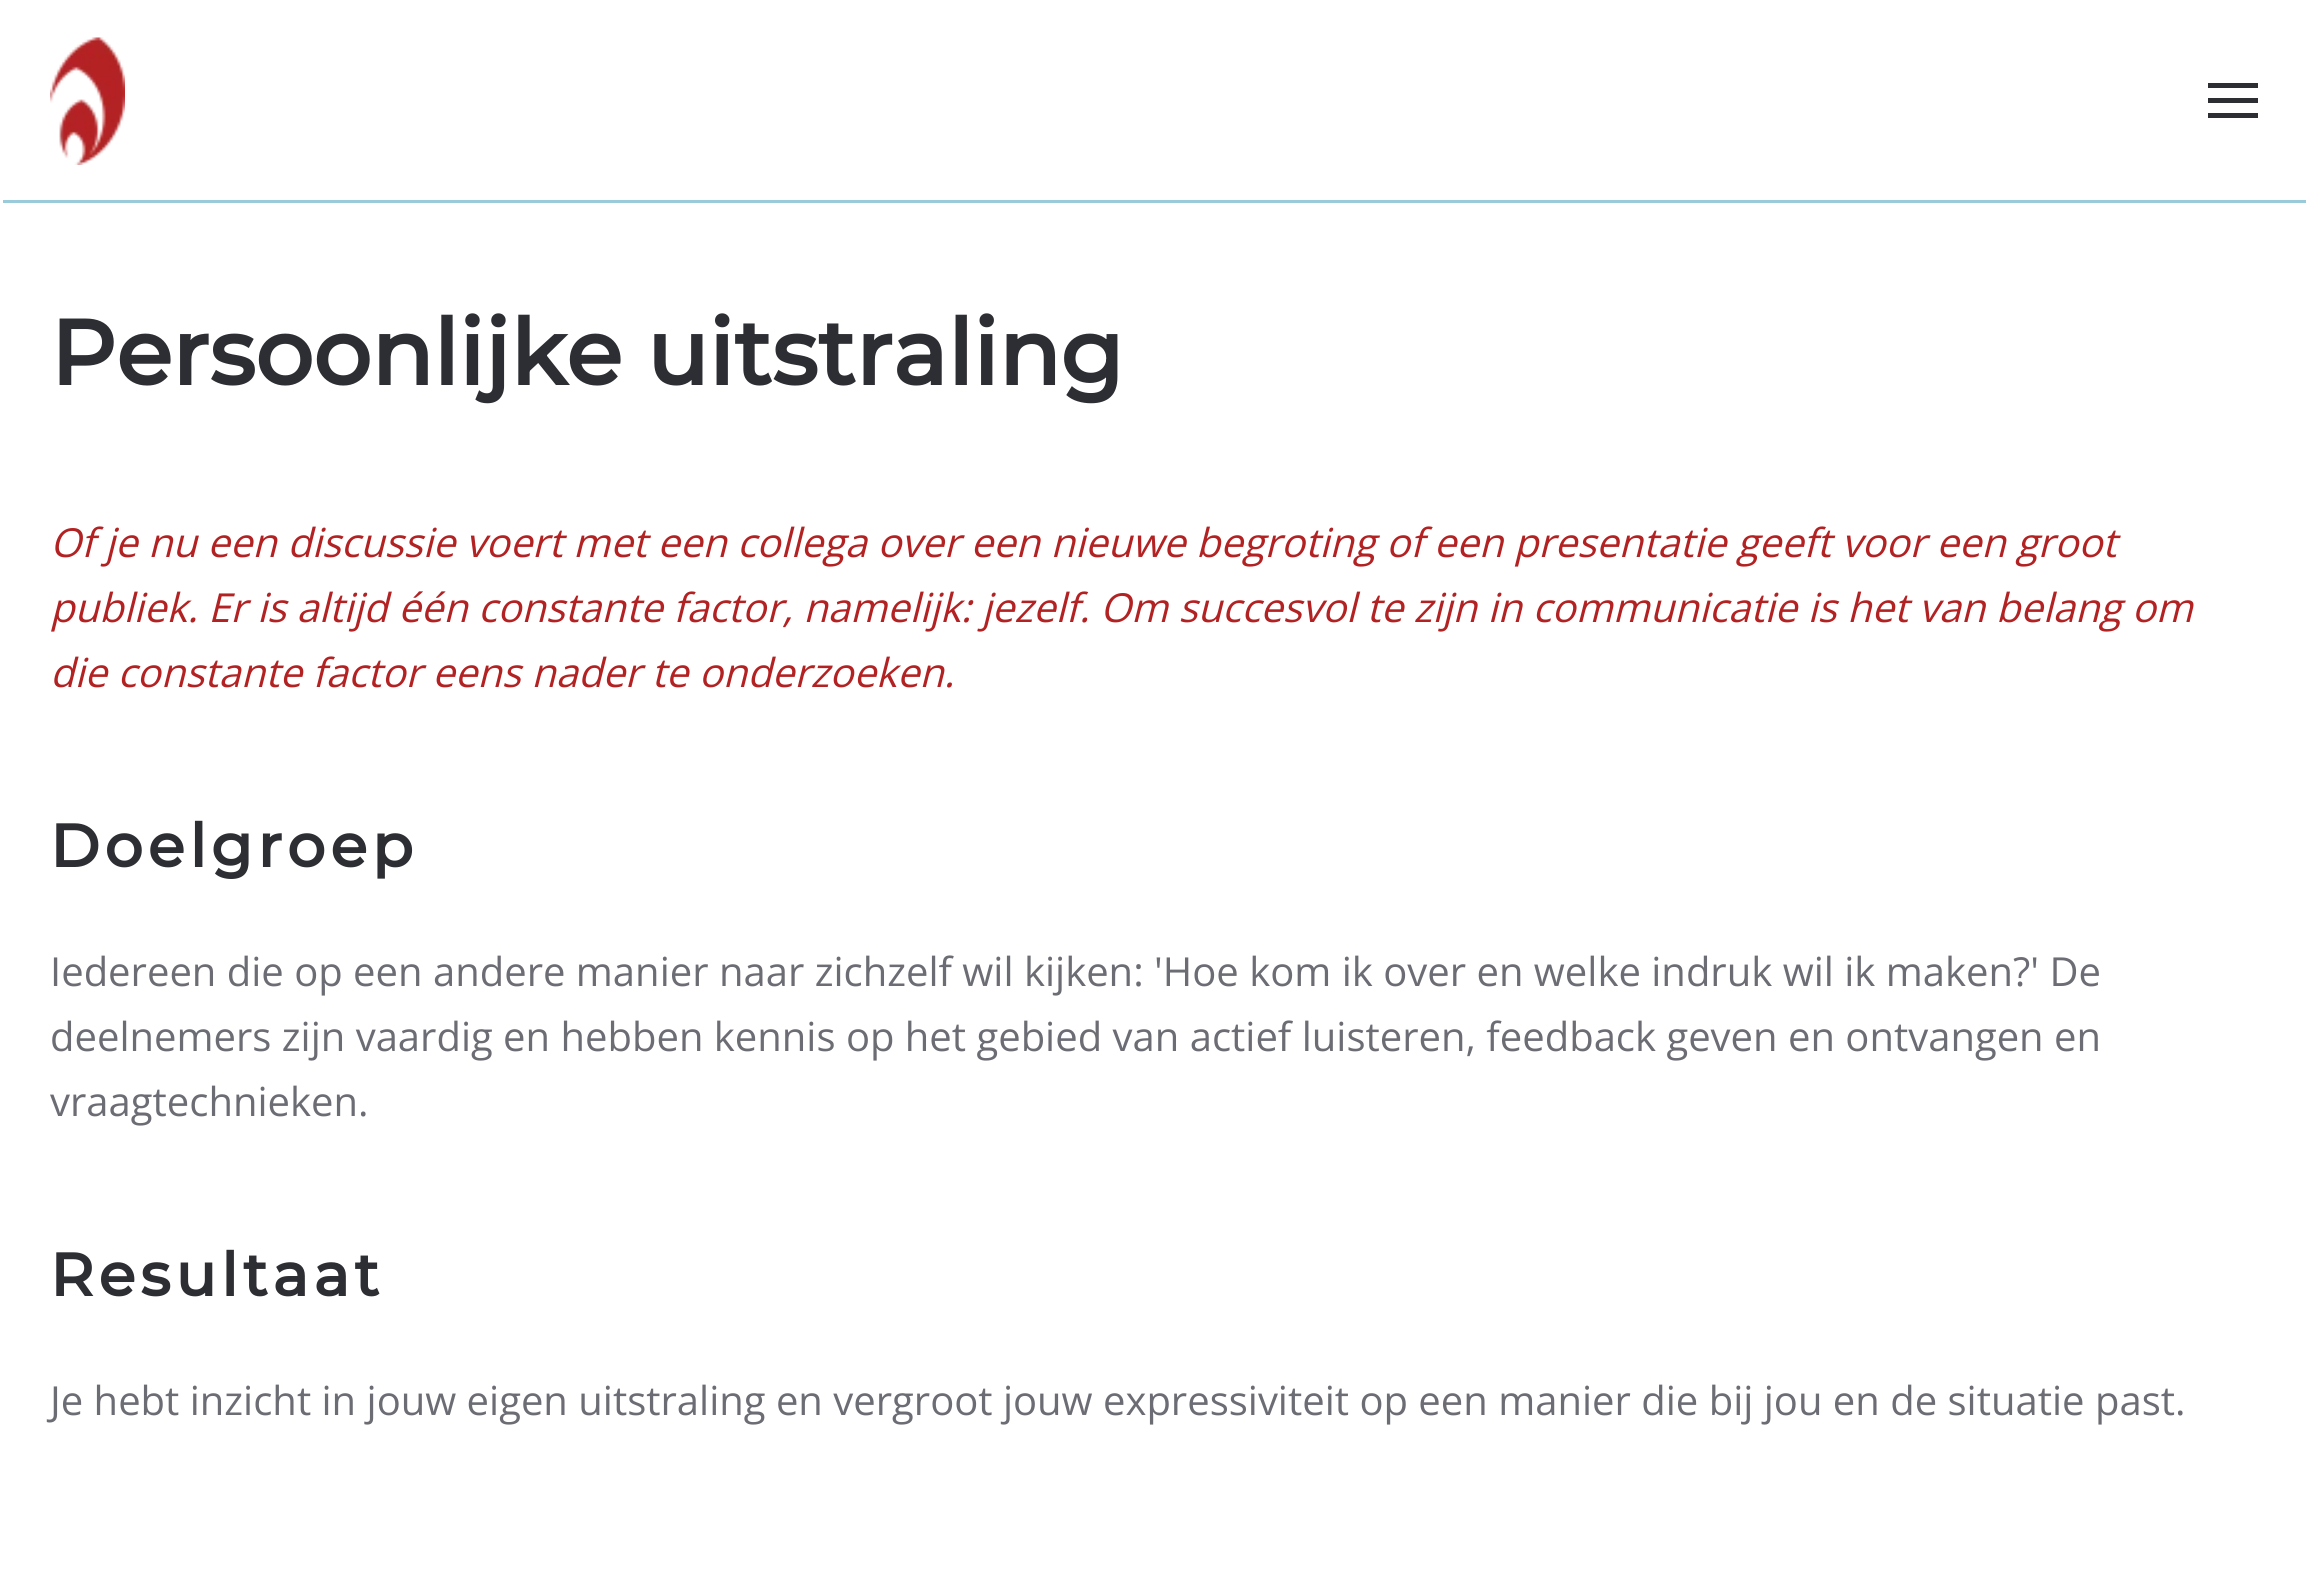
#include <cairo.h>
#include <math.h>
#include <stddef.h>

typedef struct { double x, y; const char *s; } line_t;
typedef struct { double x, y, w, h; unsigned color; } box_t;

static void ink(cairo_t *ctx, unsigned color) {
    cairo_set_source_rgb(ctx, (color >> 16) / 255.0, (color >> 8 & 255) / 255.0, (color & 255) / 255.0);
}

static void write_spaced(cairo_t *ctx, double x, double y, const char *s, double letter, double word) {
    cairo_move_to(ctx, x, y);
    while (*s) {
        char ch[5] = {0};
        int n = 0;
        do ch[n++] = *s++; while ((*s & 0xC0) == 0x80);
        cairo_show_text(ctx, ch);
        cairo_rel_move_to(ctx, letter + word * (*ch == ' '), 0);
    }
}

static void paste(cairo_t *ctx, const char *path, double x, double y, double w, double h) {
    cairo_surface_t *image = cairo_image_surface_create_from_png(path);
    cairo_save(ctx);
    cairo_set_source_surface(ctx, image, x, y);
    cairo_rectangle(ctx, x, y, w, h);
    cairo_fill(ctx);
    cairo_restore(ctx);
    cairo_surface_destroy(image);
}

int main(void) {
    cairo_surface_t *surface = cairo_image_surface_create(CAIRO_FORMAT_RGB24, 2306, 1574);
    cairo_t *ctx = cairo_create(surface);
    cairo_font_options_t *options = cairo_font_options_create();
    cairo_font_options_set_hint_metrics(options, CAIRO_HINT_METRICS_OFF);
    cairo_font_options_set_hint_style(options, CAIRO_HINT_STYLE_NONE);
    cairo_set_font_options(ctx, options);
    cairo_set_miter_limit(ctx, 4);
    ink(ctx, 0xFFFFFF);
    cairo_paint(ctx);
    ink(ctx, 0x99CBDB);
    cairo_new_path(ctx);
    cairo_move_to(ctx, 3, 200);
    cairo_line_to(ctx, 3, 203);
    cairo_line_to(ctx, 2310, 203);
    cairo_line_to(ctx, 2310, 3);
    cairo_line_to(ctx, 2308, 3);
    cairo_line_to(ctx, 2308, 200);
    cairo_close_path(ctx);
    cairo_fill(ctx);
    paste(ctx, "media/1.png", 50, 37, 75, 128);
    {
        static const box_t items[] = {
            {2208, 83, 50, 5, 0x2D2E33},
            {2208, 98, 50, 5, 0x2D2E33},
            {2208, 113, 50, 5, 0x2D2E33},
        };
        for (size_t i = 0; i < sizeof items / sizeof *items; i++) {
            ink(ctx, items[i].color);
            cairo_rectangle(ctx, items[i].x, items[i].y, items[i].w, items[i].h);
            cairo_fill(ctx);
        }
    }
    cairo_select_font_face(ctx, "Montserrat", CAIRO_FONT_SLANT_NORMAL, CAIRO_FONT_WEIGHT_BOLD);
    cairo_set_font_size(ctx, 91.3);
    cairo_move_to(ctx, 50, 385);
    cairo_show_text(ctx, "Persoonlijke uitstraling");
    cairo_select_font_face(ctx, "Open Sans", CAIRO_FONT_SLANT_ITALIC, CAIRO_FONT_WEIGHT_NORMAL);
    cairo_set_font_size(ctx, 40);
    ink(ctx, 0xB32223);
    {
        static const line_t items[] = {
            {50, 557, "Of je nu een discussie voert met een collega over een nieuwe begroting of een presentatie geeft voor een groot"},
            {50, 622, "publiek. Er is altijd één constante factor, namelijk: jezelf. Om succesvol te zijn in communicatie is het van belang om"},
            {50, 687, "die constante factor eens nader te onderzoeken."},
        };
        for (size_t i = 0; i < sizeof items / sizeof *items; i++) {
            cairo_move_to(ctx, items[i].x, items[i].y);
            cairo_show_text(ctx, items[i].s);
        }
    }
    cairo_select_font_face(ctx, "Montserrat", CAIRO_FONT_SLANT_NORMAL, CAIRO_FONT_WEIGHT_BOLD);
    cairo_set_font_size(ctx, 60);
    ink(ctx, 0x2D2E33);
    write_spaced(ctx, 50, 867, "Doelgroep", 5, 0);
    cairo_select_font_face(ctx, "Open Sans", CAIRO_FONT_SLANT_NORMAL, CAIRO_FONT_WEIGHT_NORMAL);
    cairo_set_font_size(ctx, 40);
    ink(ctx, 0x6C6D74);
    {
        static const line_t items[] = {
            {50, 986, "Iedereen die op een andere manier naar zichzelf wil kijken: 'Hoe kom ik over en welke indruk wil ik maken?' De"},
            {50, 1051, "deelnemers zijn vaardig en hebben kennis op het gebied van actief luisteren, feedback geven en ontvangen en"},
            {50, 1116, "vraagtechnieken."},
        };
        for (size_t i = 0; i < sizeof items / sizeof *items; i++) {
            cairo_move_to(ctx, items[i].x, items[i].y);
            cairo_show_text(ctx, items[i].s);
        }
    }
    cairo_select_font_face(ctx, "Montserrat", CAIRO_FONT_SLANT_NORMAL, CAIRO_FONT_WEIGHT_BOLD);
    cairo_set_font_size(ctx, 60);
    ink(ctx, 0x2D2E33);
    write_spaced(ctx, 50, 1296, "Resultaat", 5, 0);
    cairo_select_font_face(ctx, "Open Sans", CAIRO_FONT_SLANT_NORMAL, CAIRO_FONT_WEIGHT_NORMAL);
    cairo_set_font_size(ctx, 40);
    ink(ctx, 0x6C6D74);
    cairo_move_to(ctx, 50, 1415);
    cairo_show_text(ctx, "Je hebt inzicht in jouw eigen uitstraling en vergroot jouw expressiviteit op een manier die bij jou en de situatie past.");
    cairo_surface_write_to_png(surface, "image.png");
    cairo_font_options_destroy(options);
    cairo_destroy(ctx);
    cairo_surface_destroy(surface);
    return 0;
}
